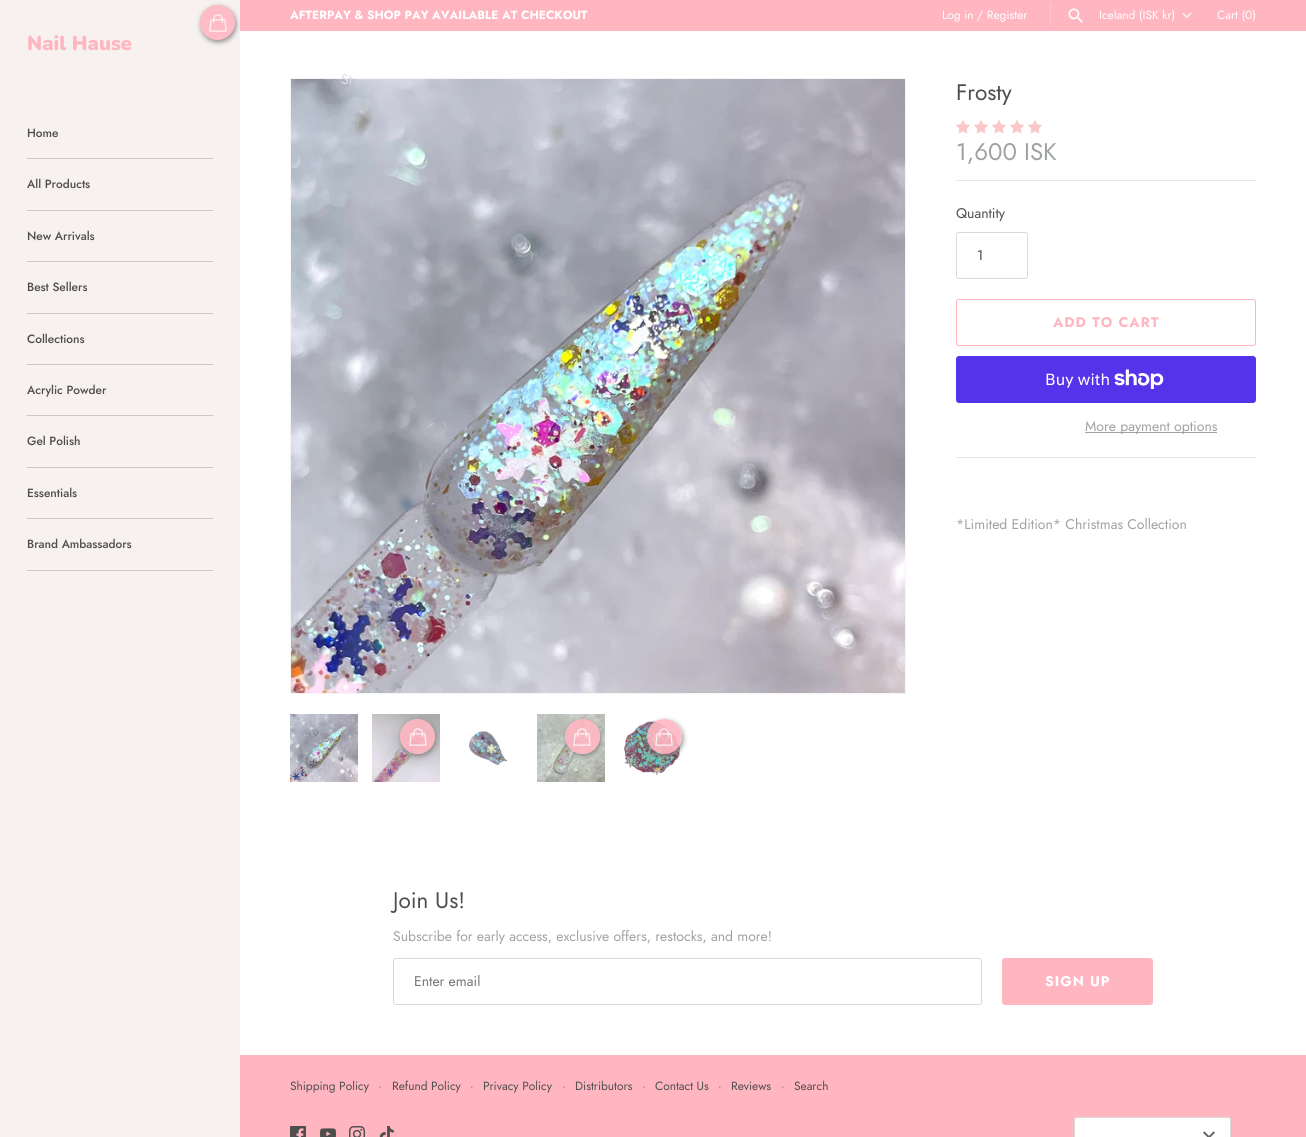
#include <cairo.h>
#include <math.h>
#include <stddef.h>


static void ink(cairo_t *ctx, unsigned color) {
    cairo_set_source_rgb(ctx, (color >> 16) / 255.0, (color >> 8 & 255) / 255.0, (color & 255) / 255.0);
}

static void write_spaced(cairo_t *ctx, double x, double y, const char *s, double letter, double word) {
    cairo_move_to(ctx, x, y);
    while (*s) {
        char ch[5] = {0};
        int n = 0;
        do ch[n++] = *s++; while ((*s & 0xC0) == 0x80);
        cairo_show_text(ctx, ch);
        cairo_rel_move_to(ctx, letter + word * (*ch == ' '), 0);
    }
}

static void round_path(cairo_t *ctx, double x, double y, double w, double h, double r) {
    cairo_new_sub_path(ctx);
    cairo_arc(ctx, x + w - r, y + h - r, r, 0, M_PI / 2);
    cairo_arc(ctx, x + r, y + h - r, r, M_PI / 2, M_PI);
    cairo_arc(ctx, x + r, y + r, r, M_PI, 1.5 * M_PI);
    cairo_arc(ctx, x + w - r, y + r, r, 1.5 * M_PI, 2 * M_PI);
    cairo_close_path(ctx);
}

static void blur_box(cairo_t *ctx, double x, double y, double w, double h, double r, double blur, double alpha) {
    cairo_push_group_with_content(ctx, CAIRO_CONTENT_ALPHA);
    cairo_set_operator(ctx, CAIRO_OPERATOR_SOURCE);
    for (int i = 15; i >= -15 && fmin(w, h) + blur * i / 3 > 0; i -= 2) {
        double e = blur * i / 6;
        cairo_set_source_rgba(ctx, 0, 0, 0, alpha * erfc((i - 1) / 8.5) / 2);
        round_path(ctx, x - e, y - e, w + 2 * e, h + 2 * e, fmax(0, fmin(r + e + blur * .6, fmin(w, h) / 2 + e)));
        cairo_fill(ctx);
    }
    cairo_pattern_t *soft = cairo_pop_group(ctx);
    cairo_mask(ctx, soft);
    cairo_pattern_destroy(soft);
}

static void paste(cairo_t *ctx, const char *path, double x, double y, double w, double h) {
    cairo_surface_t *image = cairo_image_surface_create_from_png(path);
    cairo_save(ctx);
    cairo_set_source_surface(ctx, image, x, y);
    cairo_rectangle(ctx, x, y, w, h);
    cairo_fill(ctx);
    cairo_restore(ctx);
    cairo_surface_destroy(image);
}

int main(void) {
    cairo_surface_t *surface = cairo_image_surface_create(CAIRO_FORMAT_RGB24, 1306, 1137);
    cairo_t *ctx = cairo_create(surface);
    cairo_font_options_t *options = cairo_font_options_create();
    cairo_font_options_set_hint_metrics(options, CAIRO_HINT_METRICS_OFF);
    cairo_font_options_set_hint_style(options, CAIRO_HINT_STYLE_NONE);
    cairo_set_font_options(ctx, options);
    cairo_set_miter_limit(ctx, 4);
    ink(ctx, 0xFFFFFF);
    cairo_paint(ctx);
    ink(ctx, 0xF7F1F0);
    cairo_rectangle(ctx, 0, 0, 240, 1137);
    cairo_fill(ctx);
    cairo_select_font_face(ctx, "Nunito Black", CAIRO_FONT_SLANT_NORMAL, CAIRO_FONT_WEIGHT_NORMAL);
    cairo_set_font_size(ctx, 20);
    ink(ctx, 0xFFB6C1);
    cairo_move_to(ctx, 27, 50);
    cairo_show_text(ctx, "Nail Hause");
    ink(ctx, 0xCDC8C8);
    cairo_rectangle(ctx, 27, 158, 186, 1);
    cairo_fill(ctx);
    cairo_select_font_face(ctx, "Jost Medium", CAIRO_FONT_SLANT_NORMAL, CAIRO_FONT_WEIGHT_NORMAL);
    cairo_set_font_size(ctx, 11.9);
    ink(ctx, 0x4E4E4E);
    cairo_move_to(ctx, 27, 137);
    cairo_show_text(ctx, "Home");
    ink(ctx, 0xCDC8C8);
    cairo_rectangle(ctx, 27, 210, 186, 1);
    cairo_fill(ctx);
    ink(ctx, 0x4E4E4E);
    cairo_move_to(ctx, 27, 188);
    cairo_show_text(ctx, "All Products");
    ink(ctx, 0xCDC8C8);
    cairo_rectangle(ctx, 27, 261, 186, 1);
    cairo_fill(ctx);
    ink(ctx, 0x4E4E4E);
    cairo_move_to(ctx, 27, 240);
    cairo_show_text(ctx, "New Arrivals");
    ink(ctx, 0xCDC8C8);
    cairo_rectangle(ctx, 27, 313, 186, 1);
    cairo_fill(ctx);
    ink(ctx, 0x4E4E4E);
    cairo_move_to(ctx, 27, 291);
    cairo_show_text(ctx, "Best Sellers");
    ink(ctx, 0xFFB6C1);
    cairo_rectangle(ctx, 240, 0, 1066, 31);
    cairo_fill(ctx);
    ink(ctx, 0x808080);
    blur_box(ctx, 201, 7, 35, 35, 17.5, 2.5, 0.9);
    ink(ctx, 0xFEBCC6);
    cairo_arc(ctx, 217.5, 22.5, 17.5, 0, 2 * M_PI);
    cairo_fill(ctx);
    paste(ctx, "media/1.png", 209, 14, 18, 18);
    ink(ctx, 0xCDC8C8);
    cairo_rectangle(ctx, 27, 364, 186, 1);
    cairo_fill(ctx);
    ink(ctx, 0x4E4E4E);
    cairo_move_to(ctx, 27, 343);
    cairo_show_text(ctx, "Collections");
    ink(ctx, 0xCDC8C8);
    cairo_rectangle(ctx, 27, 415, 186, 1);
    cairo_fill(ctx);
    ink(ctx, 0x4E4E4E);
    cairo_move_to(ctx, 27, 394);
    cairo_show_text(ctx, "Acrylic Powder");
    ink(ctx, 0xCDC8C8);
    cairo_rectangle(ctx, 27, 467, 186, 1);
    cairo_fill(ctx);
    ink(ctx, 0x4E4E4E);
    cairo_move_to(ctx, 27, 445);
    cairo_show_text(ctx, "Gel Polish");
    ink(ctx, 0xCDC8C8);
    cairo_rectangle(ctx, 27, 518, 186, 1);
    cairo_fill(ctx);
    ink(ctx, 0x4E4E4E);
    cairo_move_to(ctx, 27, 497);
    cairo_show_text(ctx, "Essentials");
    ink(ctx, 0xCDC8C8);
    cairo_rectangle(ctx, 27, 570, 186, 1);
    cairo_fill(ctx);
    ink(ctx, 0x4E4E4E);
    cairo_move_to(ctx, 27, 548);
    cairo_show_text(ctx, "Brand Ambassadors");
    cairo_select_font_face(ctx, "Jost", CAIRO_FONT_SLANT_NORMAL, CAIRO_FONT_WEIGHT_BOLD);
    ink(ctx, 0xFFFFFF);
    cairo_move_to(ctx, 290, 19);
    cairo_show_text(ctx, "AFTERPAY & SHOP PAY AVAILABLE AT CHECKOUT");
    cairo_select_font_face(ctx, "Jost", CAIRO_FONT_SLANT_NORMAL, CAIRO_FONT_WEIGHT_NORMAL);
    cairo_move_to(ctx, 942, 19);
    cairo_show_text(ctx, "Log in / Register");
    ink(ctx, 0xFFC8D1);
    cairo_rectangle(ctx, 1050, 3, 1, 23);
    cairo_fill(ctx);
    paste(ctx, "media/2.png", 1068, 8, 15, 15);
    ink(ctx, 0xFFFFFF);
    cairo_move_to(ctx, 1099, 19);
    cairo_show_text(ctx, "Iceland (ISK kr)");
    paste(ctx, "media/3.png", 1182, 12, 10, 7);
    cairo_move_to(ctx, 1217, 19);
    cairo_show_text(ctx, "Cart (0)");
    cairo_rectangle(ctx, 290.5, 78.5, 615, 615);
    ink(ctx, 0xF5F5F5);
    cairo_set_line_width(ctx, 1);
    cairo_stroke(ctx);
    paste(ctx, "media/4.png", 291, 79, 614, 614);
    cairo_set_font_size(ctx, 14);
    ink(ctx, 0xDCDEE6);
    cairo_move_to(ctx, 341, 84);
    cairo_show_text(ctx, "St");
    paste(ctx, "media/5.png", 290, 714, 68, 68);
    paste(ctx, "media/7.png", 372, 714, 68, 68);
    cairo_save(ctx);
    cairo_set_fill_rule(ctx, CAIRO_FILL_RULE_EVEN_ODD);
    cairo_new_path(ctx);
    cairo_move_to(ctx, 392, 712);
    cairo_line_to(ctx, 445, 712);
    cairo_line_to(ctx, 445, 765);
    cairo_line_to(ctx, 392, 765);
    cairo_close_path(ctx);
    cairo_move_to(ctx, 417.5, 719);
    cairo_curve_to(ctx, 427, 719, 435, 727, 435, 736.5);
    cairo_curve_to(ctx, 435, 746, 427, 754, 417.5, 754);
    cairo_curve_to(ctx, 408, 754, 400, 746, 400, 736.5);
    cairo_curve_to(ctx, 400, 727, 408, 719, 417.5, 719);
    cairo_close_path(ctx);
    cairo_clip(ctx);
    ink(ctx, 0x808080);
    blur_box(ctx, 401, 721, 35, 35, 17.5, 2.5, 0.9);
    cairo_restore(ctx);
    cairo_set_source_rgba(ctx, 1, 0.714, 0.757, 0.9);
    cairo_arc(ctx, 417.5, 736.5, 17.5, 0, 2 * M_PI);
    cairo_fill(ctx);
    paste(ctx, "media/6.png", 409, 728, 18, 18);
    paste(ctx, "media/8.png", 469, 731, 38, 35);
    paste(ctx, "media/10.png", 537, 714, 68, 68);
    cairo_save(ctx);
    cairo_set_fill_rule(ctx, CAIRO_FILL_RULE_EVEN_ODD);
    cairo_new_path(ctx);
    cairo_move_to(ctx, 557, 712);
    cairo_line_to(ctx, 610, 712);
    cairo_line_to(ctx, 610, 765);
    cairo_line_to(ctx, 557, 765);
    cairo_close_path(ctx);
    cairo_move_to(ctx, 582.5, 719);
    cairo_curve_to(ctx, 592, 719, 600, 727, 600, 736.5);
    cairo_curve_to(ctx, 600, 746, 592, 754, 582.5, 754);
    cairo_curve_to(ctx, 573, 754, 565, 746, 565, 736.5);
    cairo_curve_to(ctx, 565, 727, 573, 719, 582.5, 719);
    cairo_close_path(ctx);
    cairo_clip(ctx);
    ink(ctx, 0x808080);
    blur_box(ctx, 566, 721, 35, 35, 17.5, 2.5, 0.9);
    cairo_restore(ctx);
    cairo_arc(ctx, 582.5, 736.5, 17.5, 0, 2 * M_PI);
    cairo_fill(ctx);
    paste(ctx, "media/9.png", 573, 728, 18, 18);
    paste(ctx, "media/12.png", 623, 721, 58, 54);
    cairo_save(ctx);
    cairo_set_fill_rule(ctx, CAIRO_FILL_RULE_EVEN_ODD);
    cairo_new_path(ctx);
    cairo_move_to(ctx, 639, 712);
    cairo_line_to(ctx, 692, 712);
    cairo_line_to(ctx, 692, 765);
    cairo_line_to(ctx, 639, 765);
    cairo_close_path(ctx);
    cairo_move_to(ctx, 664.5, 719);
    cairo_curve_to(ctx, 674, 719, 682, 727, 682, 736.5);
    cairo_curve_to(ctx, 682, 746, 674, 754, 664.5, 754);
    cairo_curve_to(ctx, 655, 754, 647, 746, 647, 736.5);
    cairo_curve_to(ctx, 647, 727, 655, 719, 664.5, 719);
    cairo_close_path(ctx);
    cairo_clip(ctx);
    ink(ctx, 0x808080);
    blur_box(ctx, 648, 721, 35, 35, 17.5, 2.5, 0.9);
    cairo_restore(ctx);
    cairo_arc(ctx, 664.5, 736.5, 17.5, 0, 2 * M_PI);
    cairo_fill(ctx);
    paste(ctx, "media/11.png", 655, 728, 18, 18);
    cairo_set_font_size(ctx, 22.5);
    ink(ctx, 0x4E4E4E);
    cairo_move_to(ctx, 956, 100);
    cairo_show_text(ctx, "Frosty");
    paste(ctx, "media/13.png", 956, 120, 14, 14);
    paste(ctx, "media/13.png", 974, 120, 14, 14);
    paste(ctx, "media/13.png", 992, 120, 14, 14);
    paste(ctx, "media/13.png", 1010, 120, 14, 14);
    paste(ctx, "media/13.png", 1028, 120, 14, 14);
    cairo_set_font_size(ctx, 24);
    ink(ctx, 0x9FA2A4);
    cairo_move_to(ctx, 956, 160);
    cairo_show_text(ctx, "1,600 ISK");
    ink(ctx, 0xE7E7E7);
    cairo_rectangle(ctx, 956, 180, 300, 1);
    cairo_fill(ctx);
    cairo_set_font_size(ctx, 14);
    ink(ctx, 0x4E4E4E);
    cairo_move_to(ctx, 956, 218);
    cairo_show_text(ctx, "Quantity");
    round_path(ctx, 956.5, 232.5, 71, 46, 2.5);
    ink(ctx, 0xD9D9D9);
    cairo_stroke(ctx);
    ink(ctx, 0x444444);
    cairo_move_to(ctx, 977, 260);
    cairo_show_text(ctx, "1");
    round_path(ctx, 956.5, 299.5, 299, 46, 2.5);
    ink(ctx, 0xFFB6C1);
    cairo_stroke(ctx);
    cairo_select_font_face(ctx, "Jost", CAIRO_FONT_SLANT_NORMAL, CAIRO_FONT_WEIGHT_BOLD);
    write_spaced(ctx, 1053, 327, "ADD TO CART", 1, 0);
    ink(ctx, 0x5433EB);
    round_path(ctx, 956, 356, 300, 47, 3);
    cairo_fill(ctx);
    cairo_select_font_face(ctx, "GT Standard", CAIRO_FONT_SLANT_NORMAL, CAIRO_FONT_WEIGHT_NORMAL);
    cairo_set_font_size(ctx, 16);
    ink(ctx, 0xFFFFFF);
    cairo_move_to(ctx, 1045, 385);
    cairo_show_text(ctx, "Buy with");
    paste(ctx, "media/14.png", 1114, 369, 50, 20);
    ink(ctx, 0x9FA2A4);
    cairo_rectangle(ctx, 1085, 432, 132, 1);
    cairo_fill(ctx);
    cairo_select_font_face(ctx, "Jost", CAIRO_FONT_SLANT_NORMAL, CAIRO_FONT_WEIGHT_NORMAL);
    cairo_set_font_size(ctx, 14);
    cairo_move_to(ctx, 1085, 431);
    cairo_show_text(ctx, "More payment options");
    ink(ctx, 0xE7E7E7);
    cairo_rectangle(ctx, 956, 457, 300, 1);
    cairo_fill(ctx);
    ink(ctx, 0x9FA2A4);
    cairo_move_to(ctx, 956, 529);
    cairo_show_text(ctx, "*Limited Edition* Christmas Collection");
    cairo_set_font_size(ctx, 22.5);
    ink(ctx, 0x4E4E4E);
    cairo_move_to(ctx, 393, 908);
    cairo_show_text(ctx, "Join Us!");
    cairo_set_font_size(ctx, 14);
    ink(ctx, 0x9FA2A4);
    cairo_move_to(ctx, 393, 941);
    cairo_show_text(ctx, "Subscribe for early access, exclusive offers, restocks, and more!");
    round_path(ctx, 393.5, 958.5, 588, 46, 2.5);
    ink(ctx, 0xD9D9D9);
    cairo_stroke(ctx);
    ink(ctx, 0x757575);
    cairo_move_to(ctx, 414, 986);
    cairo_show_text(ctx, "Enter email");
    ink(ctx, 0xFFB6C1);
    round_path(ctx, 1002.5, 958.5, 150, 46, 2.5);
    cairo_fill_preserve(ctx);
    cairo_stroke(ctx);
    cairo_select_font_face(ctx, "Jost", CAIRO_FONT_SLANT_NORMAL, CAIRO_FONT_WEIGHT_BOLD);
    ink(ctx, 0xFFFFFF);
    write_spaced(ctx, 1045, 986, "SIGN UP", 1, 0);
    ink(ctx, 0xFFB6C1);
    cairo_rectangle(ctx, 240, 1055, 1066, 82);
    cairo_fill(ctx);
    cairo_select_font_face(ctx, "Jost", CAIRO_FONT_SLANT_NORMAL, CAIRO_FONT_WEIGHT_NORMAL);
    cairo_set_font_size(ctx, 11.9);
    ink(ctx, 0x4E4E4E);
    cairo_move_to(ctx, 290, 1090);
    cairo_show_text(ctx, "Shipping Policy");
    ink(ctx, 0x8C7276);
    cairo_move_to(ctx, 378, 1090);
    cairo_show_text(ctx, "·");
    ink(ctx, 0x4E4E4E);
    cairo_move_to(ctx, 392, 1090);
    cairo_show_text(ctx, "Refund Policy");
    ink(ctx, 0x8C7276);
    cairo_move_to(ctx, 470, 1090);
    cairo_show_text(ctx, "·");
    ink(ctx, 0x4E4E4E);
    cairo_move_to(ctx, 483, 1090);
    cairo_show_text(ctx, "Privacy Policy");
    ink(ctx, 0x8C7276);
    cairo_move_to(ctx, 562, 1090);
    cairo_show_text(ctx, "·");
    ink(ctx, 0x4E4E4E);
    cairo_move_to(ctx, 575, 1090);
    cairo_show_text(ctx, "Distributors");
    ink(ctx, 0x8C7276);
    cairo_move_to(ctx, 642, 1090);
    cairo_show_text(ctx, "·");
    ink(ctx, 0x4E4E4E);
    cairo_move_to(ctx, 655, 1090);
    cairo_show_text(ctx, "Contact Us");
    ink(ctx, 0x8C7276);
    cairo_move_to(ctx, 718, 1090);
    cairo_show_text(ctx, "·");
    ink(ctx, 0x4E4E4E);
    cairo_move_to(ctx, 731, 1090);
    cairo_show_text(ctx, "Reviews");
    ink(ctx, 0x8C7276);
    cairo_move_to(ctx, 781, 1090);
    cairo_show_text(ctx, "·");
    ink(ctx, 0x4E4E4E);
    cairo_move_to(ctx, 794, 1090);
    cairo_show_text(ctx, "Search");
    paste(ctx, "media/15.png", 290, 1126, 16, 11);
    paste(ctx, "media/16.png", 320, 1128, 16, 9);
    paste(ctx, "media/17.png", 349, 1126, 16, 11);
    paste(ctx, "media/18.png", 379, 1126, 15, 11);
    ink(ctx, 0xFFFFFF);
    round_path(ctx, 1074, 1117, 157, 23, 3);
    cairo_fill(ctx);
    round_path(ctx, 1074.5, 1117.5, 156, 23, 2.5);
    cairo_set_source_rgba(ctx, 0, 0, 0, 0.15);
    cairo_stroke(ctx);
    paste(ctx, "media/19.png", 1203, 1131, 12, 6);
    cairo_surface_write_to_png(surface, "image.png");
    cairo_font_options_destroy(options);
    cairo_destroy(ctx);
    cairo_surface_destroy(surface);
    return 0;
}
